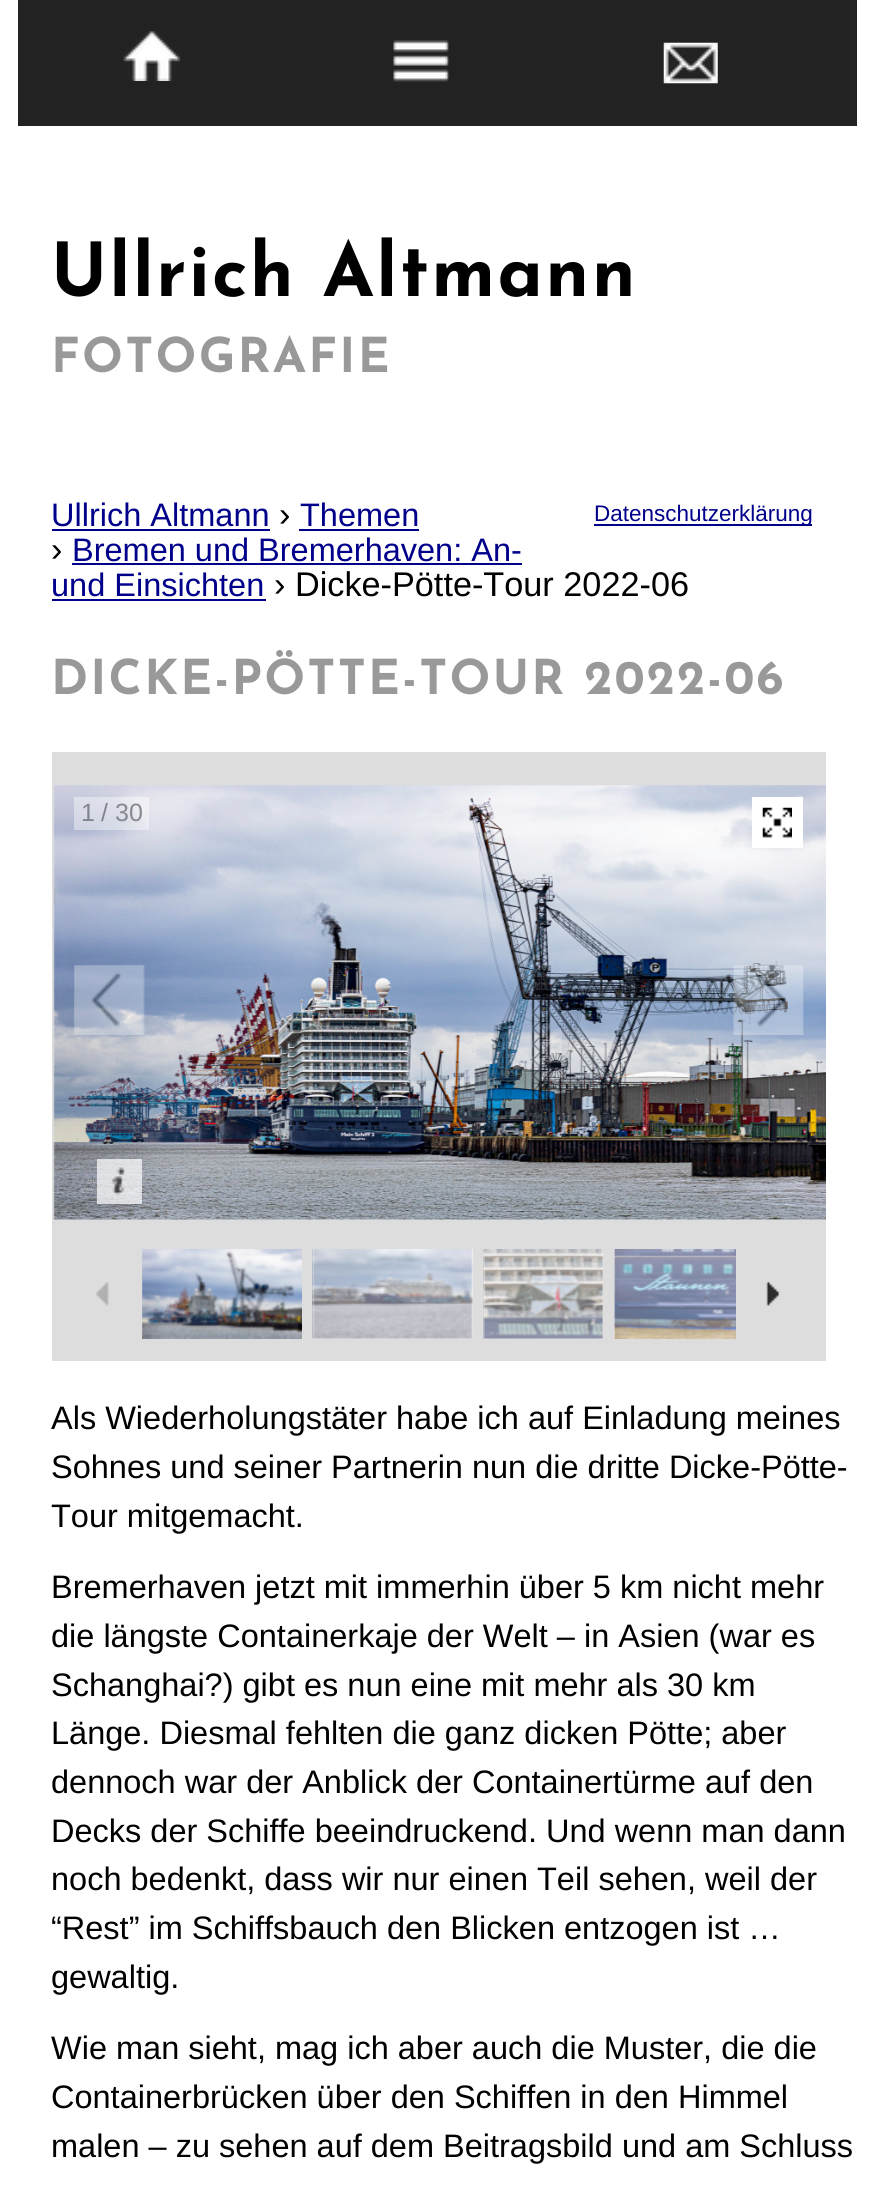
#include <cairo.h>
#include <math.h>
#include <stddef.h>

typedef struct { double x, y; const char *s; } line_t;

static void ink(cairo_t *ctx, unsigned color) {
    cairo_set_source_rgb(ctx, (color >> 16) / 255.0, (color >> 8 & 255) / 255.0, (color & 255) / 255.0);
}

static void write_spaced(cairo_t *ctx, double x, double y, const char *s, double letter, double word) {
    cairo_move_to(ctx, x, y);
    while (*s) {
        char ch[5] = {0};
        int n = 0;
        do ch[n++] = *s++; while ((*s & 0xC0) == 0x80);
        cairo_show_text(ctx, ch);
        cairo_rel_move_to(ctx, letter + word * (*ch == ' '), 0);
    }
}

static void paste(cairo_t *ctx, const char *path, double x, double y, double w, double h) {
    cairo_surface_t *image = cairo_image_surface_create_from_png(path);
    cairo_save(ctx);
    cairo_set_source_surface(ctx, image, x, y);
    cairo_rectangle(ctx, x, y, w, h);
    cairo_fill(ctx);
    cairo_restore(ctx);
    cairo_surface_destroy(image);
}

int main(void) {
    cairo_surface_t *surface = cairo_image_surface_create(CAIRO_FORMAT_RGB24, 875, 2193);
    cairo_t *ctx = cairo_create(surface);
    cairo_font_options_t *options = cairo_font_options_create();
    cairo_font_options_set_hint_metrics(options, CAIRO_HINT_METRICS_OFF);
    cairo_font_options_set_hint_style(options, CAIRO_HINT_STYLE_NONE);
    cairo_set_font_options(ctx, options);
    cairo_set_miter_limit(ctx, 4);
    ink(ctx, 0xFFFFFF);
    cairo_paint(ctx);
    ink(ctx, 0x222222);
    cairo_rectangle(ctx, 18, 0, 839, 126);
    cairo_fill(ctx);
    paste(ctx, "media/1.png", 123, 31, 57, 50);
    paste(ctx, "media/2.png", 393, 40, 56, 42);
    paste(ctx, "media/3.png", 663, 42, 55, 42);
    cairo_select_font_face(ctx, "Josefin Sans", CAIRO_FONT_SLANT_NORMAL, CAIRO_FONT_WEIGHT_BOLD);
    cairo_set_font_size(ctx, 74.25);
    ink(ctx, 0x000000);
    write_spaced(ctx, 51, 296, "Ullrich Altmann", 2.25, 0);
    cairo_set_font_size(ctx, 48);
    ink(ctx, 0x999999);
    write_spaced(ctx, 51, 372, "FOTOGRAFIE", 2.25, 0);
    cairo_select_font_face(ctx, "Liberation Sans", CAIRO_FONT_SLANT_NORMAL, CAIRO_FONT_WEIGHT_NORMAL);
    cairo_set_font_size(ctx, 32.5);
    ink(ctx, 0x00008B);
    cairo_move_to(ctx, 51, 526);
    cairo_show_text(ctx, "Ullrich Altmann");
    cairo_rectangle(ctx, 52, 529, 218, 2);
    cairo_fill(ctx);
    cairo_set_font_size(ctx, 34.25);
    ink(ctx, 0x000000);
    cairo_move_to(ctx, 279, 526);
    cairo_show_text(ctx, "›");
    cairo_set_font_size(ctx, 32.5);
    ink(ctx, 0x00008B);
    cairo_move_to(ctx, 300, 526);
    cairo_show_text(ctx, "Themen");
    cairo_rectangle(ctx, 299, 529, 120, 2);
    cairo_fill(ctx);
    cairo_set_font_size(ctx, 34.25);
    ink(ctx, 0x000000);
    cairo_move_to(ctx, 51, 561);
    cairo_show_text(ctx, "›");
    cairo_set_font_size(ctx, 32.5);
    ink(ctx, 0x00008B);
    cairo_move_to(ctx, 72, 561);
    cairo_show_text(ctx, "Bremen und Bremerhaven: An-");
    cairo_rectangle(ctx, 72, 563, 450, 2);
    cairo_fill(ctx);
    cairo_move_to(ctx, 51, 596);
    cairo_show_text(ctx, "und Einsichten");
    cairo_rectangle(ctx, 52, 599, 214, 2);
    cairo_fill(ctx);
    cairo_set_font_size(ctx, 34.25);
    ink(ctx, 0x000000);
    cairo_move_to(ctx, 274, 596);
    cairo_show_text(ctx, "› Dicke-Pötte-Tour 2022-06");
    ink(ctx, 0x00008B);
    cairo_rectangle(ctx, 594, 524, 218, 2);
    cairo_fill(ctx);
    cairo_set_font_size(ctx, 22.5);
    cairo_move_to(ctx, 594, 521);
    cairo_show_text(ctx, "Datenschutzerklärung");
    cairo_select_font_face(ctx, "Josefin Sans", CAIRO_FONT_SLANT_NORMAL, CAIRO_FONT_WEIGHT_BOLD);
    cairo_set_font_size(ctx, 48);
    ink(ctx, 0x999999);
    write_spaced(ctx, 51, 694, "DICKE-PÖTTE-TOUR 2022-06", 2.25, 0);
    ink(ctx, 0xDDDDDD);
    cairo_rectangle(ctx, 52, 752, 774, 609);
    cairo_fill(ctx);
    paste(ctx, "media/4.png", 53, 785, 773, 435);
    cairo_set_source_rgba(ctx, 1, 1, 1, 0.4);
    cairo_rectangle(ctx, 74, 797, 75, 33);
    cairo_fill(ctx);
    cairo_select_font_face(ctx, "Liberation Sans", CAIRO_FONT_SLANT_NORMAL, CAIRO_FONT_WEIGHT_NORMAL);
    cairo_set_font_size(ctx, 25);
    ink(ctx, 0x82838B);
    cairo_move_to(ctx, 81, 821);
    cairo_show_text(ctx, "1");
    cairo_move_to(ctx, 101, 821);
    cairo_show_text(ctx, "/");
    ink(ctx, 0x88898F);
    cairo_move_to(ctx, 115, 821);
    cairo_show_text(ctx, "30");
    ink(ctx, 0xFFFFFF);
    cairo_rectangle(ctx, 752, 797, 51, 51);
    cairo_fill(ctx);
    paste(ctx, "media/5.png", 762, 807, 30, 31);
    paste(ctx, "media/6.png", 74, 965, 71, 70);
    paste(ctx, "media/7.png", 733, 965, 71, 70);
    cairo_set_source_rgba(ctx, 1, 1, 1, 0.7);
    cairo_rectangle(ctx, 97, 1159, 45, 45);
    cairo_fill(ctx);
    paste(ctx, "media/8.png", 110, 1167, 15, 29);
    paste(ctx, "media/9.png", 96, 1282, 13, 24);
    paste(ctx, "media/10.png", 142, 1249, 160, 90);
    ink(ctx, 0xFFFFFF);
    cairo_rectangle(ctx, 313, 1249, 160, 90);
    cairo_fill(ctx);
    paste(ctx, "media/11.png", 312, 1249, 161, 90);
    cairo_rectangle(ctx, 484, 1249, 119, 90);
    cairo_fill(ctx);
    paste(ctx, "media/12.png", 483, 1249, 120, 90);
    cairo_rectangle(ctx, 614, 1249, 122, 90);
    cairo_fill(ctx);
    paste(ctx, "media/13.png", 614, 1249, 122, 90);
    paste(ctx, "media/14.png", 766, 1282, 14, 24);
    cairo_set_font_size(ctx, 32.5);
    ink(ctx, 0x000000);
    {
        static const line_t items[] = {
            {51, 1429, "Als Wiederholungstäter habe ich auf Einladung meines"},
            {51, 1478, "Sohnes und seiner Partnerin nun die dritte Dicke-Pötte-"},
            {51, 1527, "Tour mitgemacht."},
            {51, 1598, "Bremerhaven jetzt mit immerhin über 5 km nicht mehr"},
            {51, 1647, "die längste Containerkaje der Welt – in Asien (war es"},
            {51, 1696, "Schanghai?) gibt es nun eine mit mehr als 30 km"},
            {51, 1744, "Länge. Diesmal fehlten die ganz dicken Pötte; aber"},
            {51, 1793, "dennoch war der Anblick der Containertürme auf den"},
            {51, 1842, "Decks der Schiffe beeindruckend. Und wenn man dann"},
            {51, 1890, "noch bedenkt, dass wir nur einen Teil sehen, weil der"},
            {51, 1939, "“Rest” im Schiffsbauch den Blicken entzogen ist …"},
            {51, 1988, "gewaltig."},
            {51, 2059, "Wie man sieht, mag ich aber auch die Muster, die die"},
            {51, 2108, "Containerbrücken über den Schiffen in den Himmel"},
            {51, 2157, "malen – zu sehen auf dem Beitragsbild und am Schluss"},
        };
        for (size_t i = 0; i < sizeof items / sizeof *items; i++) {
            cairo_move_to(ctx, items[i].x, items[i].y);
            cairo_show_text(ctx, items[i].s);
        }
    }
    cairo_surface_write_to_png(surface, "image.png");
    cairo_font_options_destroy(options);
    cairo_destroy(ctx);
    cairo_surface_destroy(surface);
    return 0;
}
